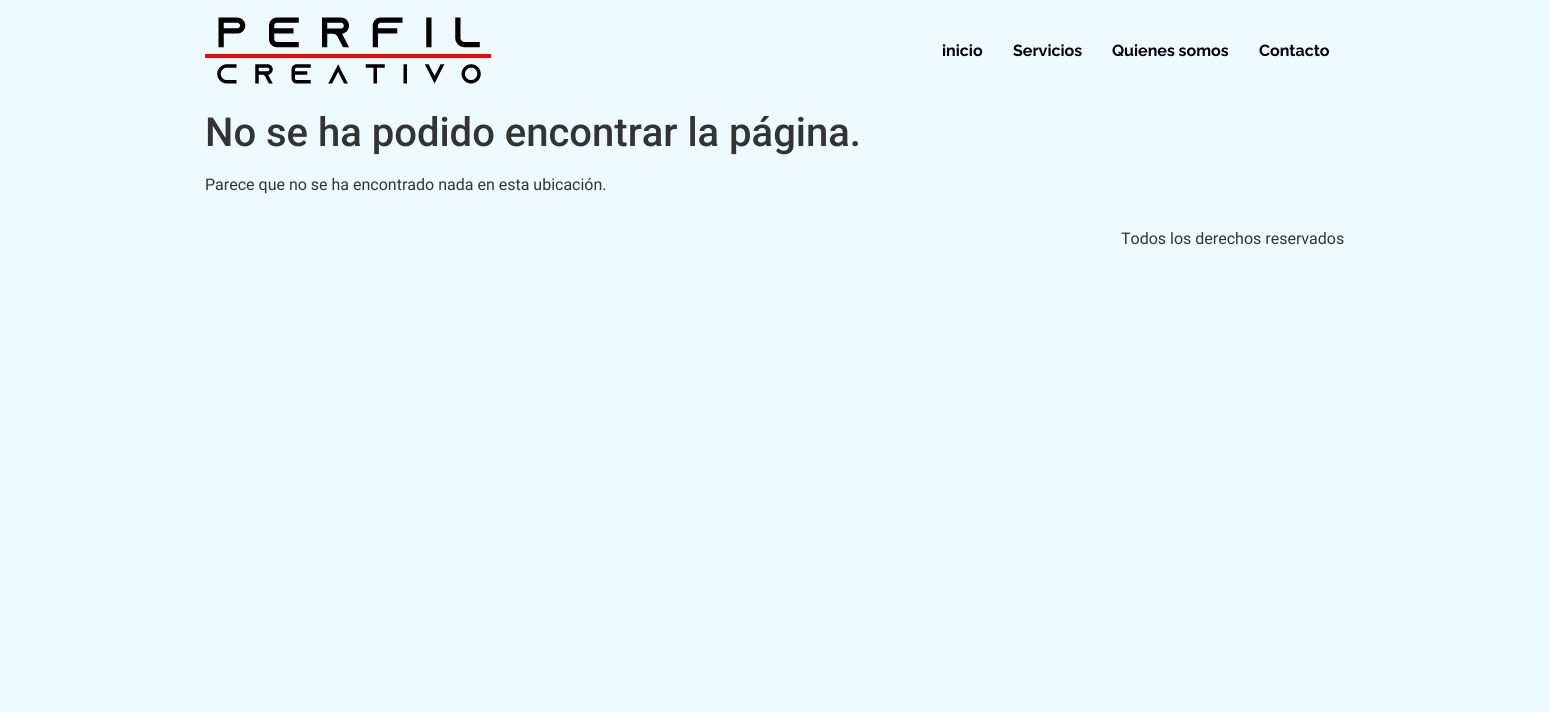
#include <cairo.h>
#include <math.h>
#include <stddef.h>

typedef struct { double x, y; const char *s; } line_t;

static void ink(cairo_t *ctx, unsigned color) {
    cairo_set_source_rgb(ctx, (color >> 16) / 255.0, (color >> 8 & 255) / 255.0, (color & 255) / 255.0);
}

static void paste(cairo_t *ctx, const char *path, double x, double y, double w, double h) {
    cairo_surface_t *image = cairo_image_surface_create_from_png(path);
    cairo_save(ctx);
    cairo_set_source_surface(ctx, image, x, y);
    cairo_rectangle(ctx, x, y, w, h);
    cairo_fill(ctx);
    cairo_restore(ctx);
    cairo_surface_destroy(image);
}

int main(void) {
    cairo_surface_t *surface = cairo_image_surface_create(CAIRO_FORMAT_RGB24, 1549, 712);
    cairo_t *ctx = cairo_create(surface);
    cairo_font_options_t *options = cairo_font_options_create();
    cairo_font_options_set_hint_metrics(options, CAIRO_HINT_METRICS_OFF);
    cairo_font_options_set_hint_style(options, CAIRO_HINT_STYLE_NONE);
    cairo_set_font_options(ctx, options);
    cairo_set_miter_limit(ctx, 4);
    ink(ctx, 0xEDFAFF);
    cairo_paint(ctx);
    paste(ctx, "media/1.png", 205, 17, 286, 67);
    cairo_select_font_face(ctx, "Raleway", CAIRO_FONT_SLANT_NORMAL, CAIRO_FONT_WEIGHT_BOLD);
    cairo_set_font_size(ctx, 16);
    ink(ctx, 0x000000);
    {
        static const line_t items[] = {
            {942, 56, "inicio"},
            {1013, 56, "Servicios"},
            {1112, 56, "Quienes somos"},
            {1259, 56, "Contacto"},
        };
        for (size_t i = 0; i < sizeof items / sizeof *items; i++) {
            cairo_move_to(ctx, items[i].x, items[i].y);
            cairo_show_text(ctx, items[i].s);
        }
    }
    cairo_select_font_face(ctx, "Roboto Medium", CAIRO_FONT_SLANT_NORMAL, CAIRO_FONT_WEIGHT_NORMAL);
    cairo_set_font_size(ctx, 40);
    ink(ctx, 0x333333);
    cairo_move_to(ctx, 205, 146);
    cairo_show_text(ctx, "No se ha podido encontrar la página.");
    cairo_select_font_face(ctx, "Roboto", CAIRO_FONT_SLANT_NORMAL, CAIRO_FONT_WEIGHT_NORMAL);
    cairo_set_font_size(ctx, 16);
    cairo_move_to(ctx, 205, 190);
    cairo_show_text(ctx, "Parece que no se ha encontrado nada en esta ubicación.");
    cairo_move_to(ctx, 1121, 244);
    cairo_show_text(ctx, "Todos los derechos reservados");
    cairo_surface_write_to_png(surface, "image.png");
    cairo_font_options_destroy(options);
    cairo_destroy(ctx);
    cairo_surface_destroy(surface);
    return 0;
}
